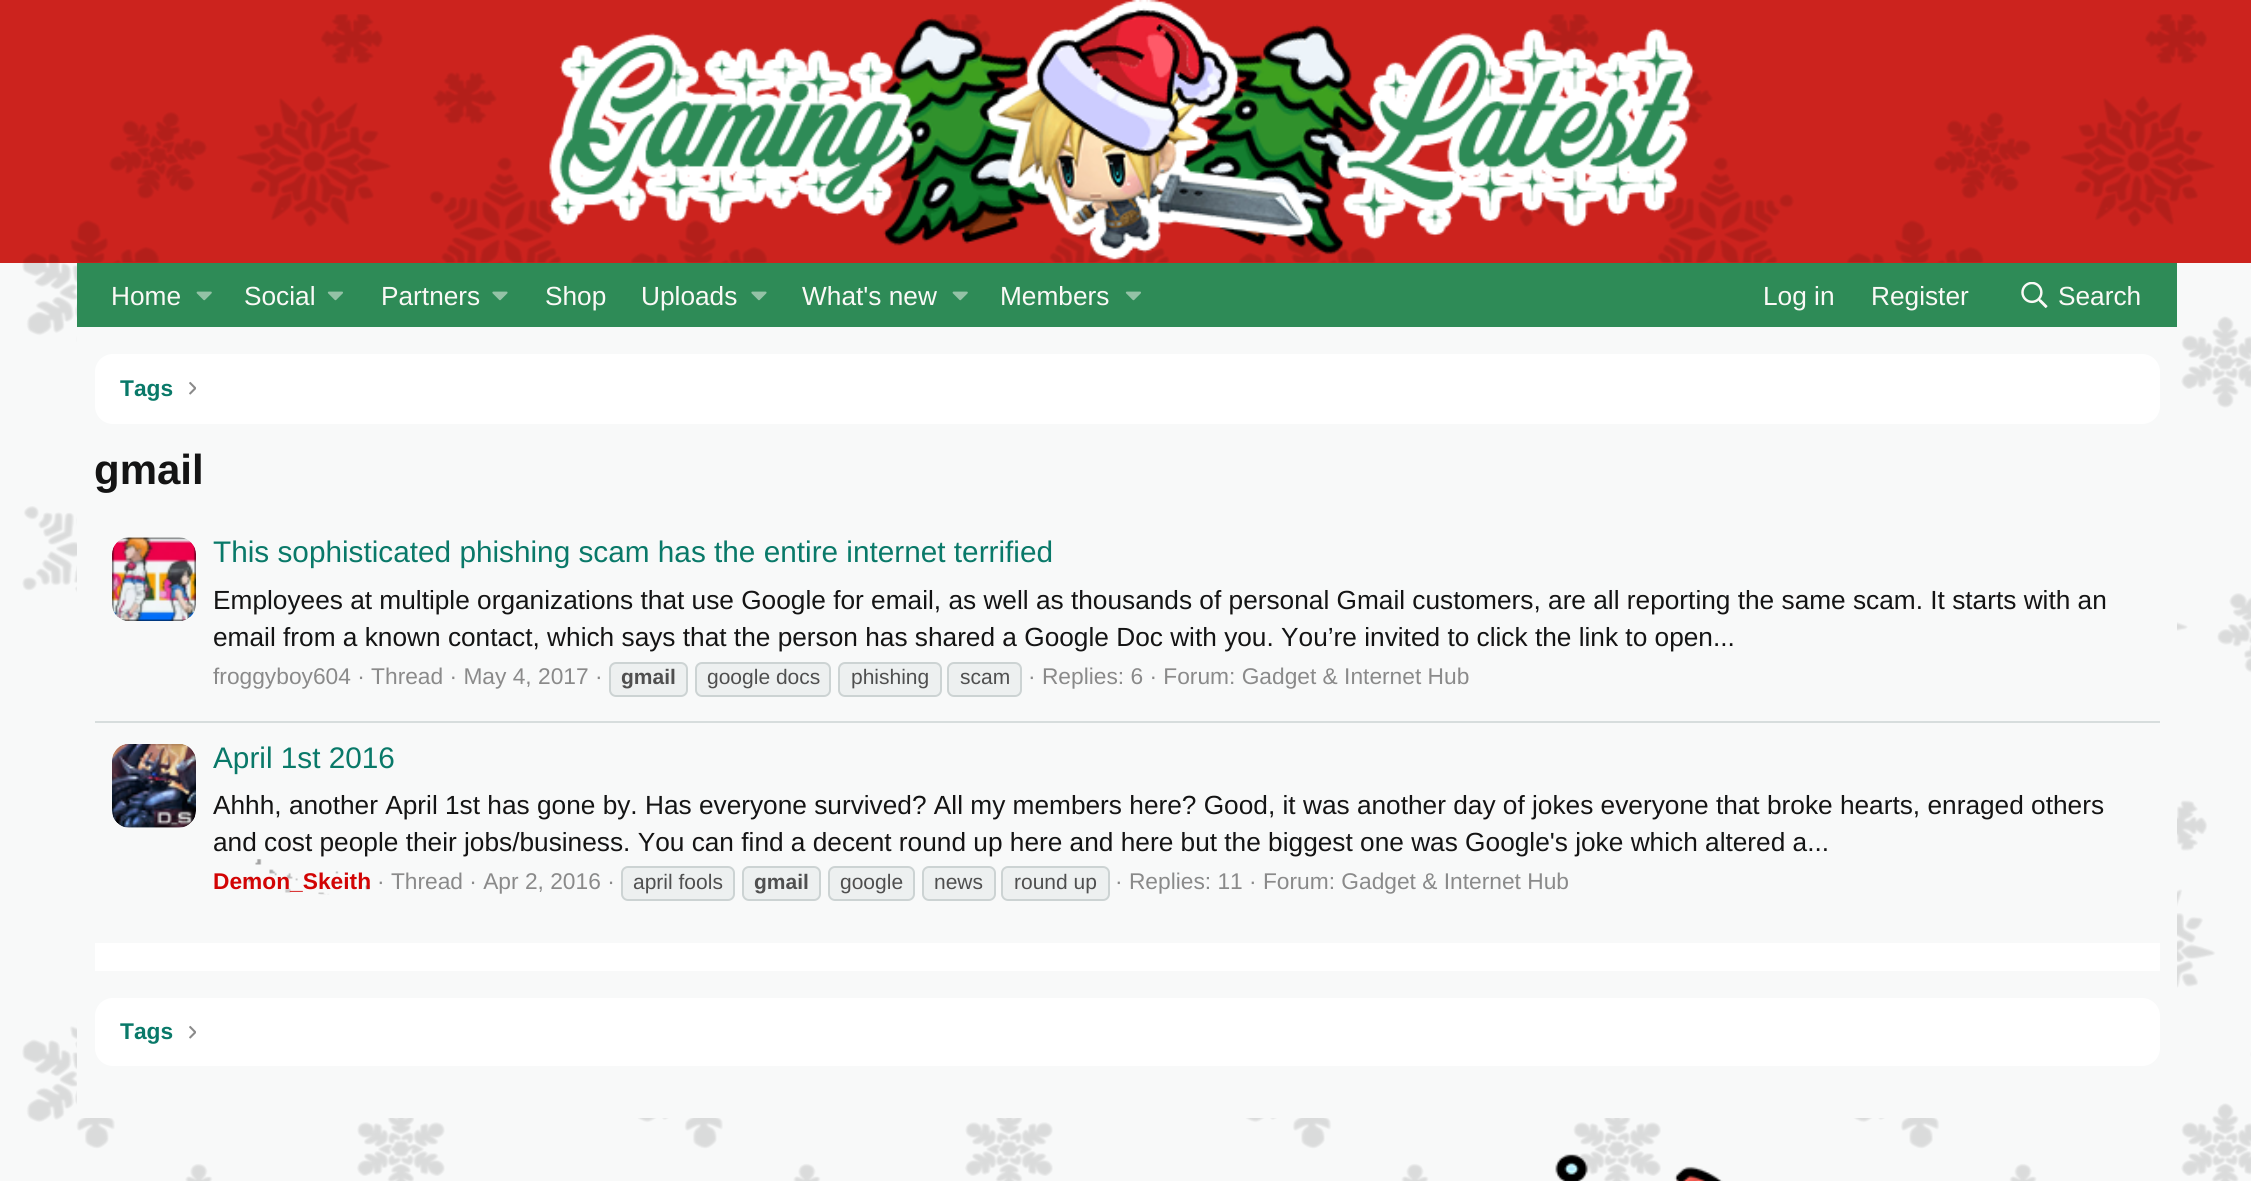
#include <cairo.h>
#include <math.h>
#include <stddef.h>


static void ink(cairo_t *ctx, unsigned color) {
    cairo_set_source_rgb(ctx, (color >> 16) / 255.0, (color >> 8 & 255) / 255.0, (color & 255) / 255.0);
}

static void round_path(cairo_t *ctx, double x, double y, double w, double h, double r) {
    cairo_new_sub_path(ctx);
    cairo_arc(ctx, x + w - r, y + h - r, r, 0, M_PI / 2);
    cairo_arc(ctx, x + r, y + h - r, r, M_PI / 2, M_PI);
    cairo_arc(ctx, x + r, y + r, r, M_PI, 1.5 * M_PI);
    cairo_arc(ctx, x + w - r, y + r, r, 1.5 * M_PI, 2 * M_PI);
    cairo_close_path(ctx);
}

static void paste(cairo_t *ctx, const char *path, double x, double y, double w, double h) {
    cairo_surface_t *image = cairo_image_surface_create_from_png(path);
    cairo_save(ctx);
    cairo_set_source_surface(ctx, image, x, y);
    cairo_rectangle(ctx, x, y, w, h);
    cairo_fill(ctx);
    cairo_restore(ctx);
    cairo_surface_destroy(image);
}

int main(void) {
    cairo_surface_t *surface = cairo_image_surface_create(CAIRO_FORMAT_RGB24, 2251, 1181);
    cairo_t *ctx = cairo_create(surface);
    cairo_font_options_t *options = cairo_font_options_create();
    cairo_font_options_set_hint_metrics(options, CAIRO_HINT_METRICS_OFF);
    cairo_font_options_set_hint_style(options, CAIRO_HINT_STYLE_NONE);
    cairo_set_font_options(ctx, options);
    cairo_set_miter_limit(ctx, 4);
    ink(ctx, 0xF8F9F9);
    cairo_paint(ctx);
    paste(ctx, "media/1.png", 22, 263, 2229, 918);
    ink(ctx, 0xCC231E);
    cairo_rectangle(ctx, 0, 0, 2251, 263);
    cairo_fill(ctx);
    paste(ctx, "media/2.png", 23, 14, 2192, 249);
    paste(ctx, "media/3.png", 549, 0, 1146, 260);
    ink(ctx, 0x2E8B57);
    cairo_rectangle(ctx, 77, 263, 2100, 64);
    cairo_fill(ctx);
    cairo_select_font_face(ctx, "Liberation Sans", CAIRO_FONT_SLANT_NORMAL, CAIRO_FONT_WEIGHT_NORMAL);
    cairo_set_font_size(ctx, 26.25);
    ink(ctx, 0xFAF9F6);
    cairo_move_to(ctx, 111, 305);
    cairo_show_text(ctx, "Home");
    paste(ctx, "media/4.png", 196, 291, 16, 10);
    cairo_move_to(ctx, 244, 305);
    cairo_show_text(ctx, "Social");
    paste(ctx, "media/5.png", 327, 291, 16, 10);
    cairo_move_to(ctx, 381, 305);
    cairo_show_text(ctx, "Partners");
    paste(ctx, "media/6.png", 492, 291, 16, 10);
    cairo_move_to(ctx, 545, 305);
    cairo_show_text(ctx, "Shop");
    cairo_move_to(ctx, 641, 305);
    cairo_show_text(ctx, "Uploads");
    paste(ctx, "media/6.png", 751, 291, 16, 10);
    cairo_move_to(ctx, 802, 305);
    cairo_show_text(ctx, "What's new");
    paste(ctx, "media/4.png", 952, 291, 16, 10);
    cairo_move_to(ctx, 1000, 305);
    cairo_show_text(ctx, "Members");
    paste(ctx, "media/5.png", 1125, 291, 16, 10);
    cairo_move_to(ctx, 1763, 305);
    cairo_show_text(ctx, "Log in");
    cairo_move_to(ctx, 1871, 305);
    cairo_show_text(ctx, "Register");
    paste(ctx, "media/7.png", 2021, 282, 27, 26);
    cairo_move_to(ctx, 2058, 305);
    cairo_show_text(ctx, "Search");
    ink(ctx, 0xF8F9F9);
    cairo_rectangle(ctx, 77, 327, 2100, 791);
    cairo_fill(ctx);
    ink(ctx, 0xFFFFFF);
    round_path(ctx, 95, 354, 2065, 70, 18);
    cairo_fill(ctx);
    cairo_select_font_face(ctx, "Liberation Sans", CAIRO_FONT_SLANT_NORMAL, CAIRO_FONT_WEIGHT_BOLD);
    cairo_set_font_size(ctx, 22.75);
    ink(ctx, 0x097969);
    cairo_move_to(ctx, 120, 396);
    cairo_show_text(ctx, "Tags");
    paste(ctx, "media/8.png", 189, 381, 7, 14);
    cairo_set_font_size(ctx, 42);
    ink(ctx, 0x141414);
    cairo_move_to(ctx, 94, 484);
    cairo_show_text(ctx, "gmail");
    paste(ctx, "media/9.png", 112, 537, 84, 84);
    cairo_select_font_face(ctx, "Liberation Sans", CAIRO_FONT_SLANT_NORMAL, CAIRO_FONT_WEIGHT_NORMAL);
    cairo_set_font_size(ctx, 29.75);
    ink(ctx, 0x097969);
    cairo_move_to(ctx, 213, 562);
    cairo_show_text(ctx, "This sophisticated phishing scam has the entire internet terrified");
    cairo_set_font_size(ctx, 26.25);
    ink(ctx, 0x141414);
    cairo_move_to(ctx, 213, 609);
    cairo_show_text(ctx, "Employees at multiple organizations that use Google for email, as well as thousands of personal Gmail customers, are all reporting the same scam. It starts with an");
    cairo_move_to(ctx, 213, 646);
    cairo_show_text(ctx, "email from a known contact, which says that the person has shared a Google Doc with you. You’re invited to click the link to open...");
    cairo_set_font_size(ctx, 22.75);
    ink(ctx, 0x8A8A8A);
    cairo_move_to(ctx, 213, 684);
    cairo_show_text(ctx, "froggyboy604 · Thread · May 4, 2017 ·");
    ink(ctx, 0xEDF0F0);
    round_path(ctx, 610, 663, 77, 33, 6);
    cairo_fill_preserve(ctx);
    ink(ctx, 0xCCD3D3);
    cairo_stroke(ctx);
    cairo_select_font_face(ctx, "Liberation Sans", CAIRO_FONT_SLANT_NORMAL, CAIRO_FONT_WEIGHT_BOLD);
    cairo_set_font_size(ctx, 21);
    ink(ctx, 0x4F4F4F);
    cairo_move_to(ctx, 621, 684);
    cairo_show_text(ctx, "gmail");
    ink(ctx, 0xEDF0F0);
    round_path(ctx, 696, 663, 134, 33, 6);
    cairo_fill_preserve(ctx);
    ink(ctx, 0xCCD3D3);
    cairo_stroke(ctx);
    cairo_select_font_face(ctx, "Liberation Sans", CAIRO_FONT_SLANT_NORMAL, CAIRO_FONT_WEIGHT_NORMAL);
    ink(ctx, 0x4F4F4F);
    cairo_move_to(ctx, 707, 684);
    cairo_show_text(ctx, "google docs");
    ink(ctx, 0xEDF0F0);
    round_path(ctx, 839, 663, 102, 33, 6);
    cairo_fill_preserve(ctx);
    ink(ctx, 0xCCD3D3);
    cairo_stroke(ctx);
    ink(ctx, 0x4F4F4F);
    cairo_move_to(ctx, 851, 684);
    cairo_show_text(ctx, "phishing");
    ink(ctx, 0xEDF0F0);
    round_path(ctx, 948, 663, 73, 33, 6);
    cairo_fill_preserve(ctx);
    ink(ctx, 0xCCD3D3);
    cairo_stroke(ctx);
    ink(ctx, 0x4F4F4F);
    cairo_move_to(ctx, 960, 684);
    cairo_show_text(ctx, "scam");
    cairo_set_font_size(ctx, 22.75);
    ink(ctx, 0x8A8A8A);
    cairo_move_to(ctx, 1028, 684);
    cairo_show_text(ctx, "· Replies: 6 · Forum: Gadget & Internet Hub");
    ink(ctx, 0xD7DDDD);
    cairo_rectangle(ctx, 95, 721, 2065, 2);
    cairo_fill(ctx);
    paste(ctx, "media/10.png", 112, 744, 84, 84);
    cairo_set_font_size(ctx, 29.75);
    ink(ctx, 0x097969);
    cairo_move_to(ctx, 213, 768);
    cairo_show_text(ctx, "April 1st 2016");
    cairo_set_font_size(ctx, 26.25);
    ink(ctx, 0x141414);
    cairo_move_to(ctx, 213, 814);
    cairo_show_text(ctx, "Ahhh, another April 1st has gone by. Has everyone survived? All my members here? Good, it was another day of jokes everyone that broke hearts, enraged others");
    cairo_move_to(ctx, 213, 851);
    cairo_show_text(ctx, "and cost people their jobs/business. You can find a decent round up here and here but the biggest one was Google's joke which altered a...");
    paste(ctx, "media/11.png", 248, 859, 122, 36);
    cairo_select_font_face(ctx, "Liberation Sans", CAIRO_FONT_SLANT_NORMAL, CAIRO_FONT_WEIGHT_BOLD);
    cairo_set_font_size(ctx, 22.75);
    ink(ctx, 0xD20404);
    cairo_move_to(ctx, 213, 889);
    cairo_show_text(ctx, "Demon_Skeith");
    cairo_select_font_face(ctx, "Liberation Sans", CAIRO_FONT_SLANT_NORMAL, CAIRO_FONT_WEIGHT_NORMAL);
    ink(ctx, 0x8A8A8A);
    cairo_move_to(ctx, 377, 889);
    cairo_show_text(ctx, "· Thread · Apr 2, 2016 ·");
    ink(ctx, 0xEDF0F0);
    round_path(ctx, 622, 867, 112, 33, 6);
    cairo_fill_preserve(ctx);
    ink(ctx, 0xCCD3D3);
    cairo_stroke(ctx);
    cairo_set_font_size(ctx, 21);
    ink(ctx, 0x4F4F4F);
    cairo_move_to(ctx, 633, 889);
    cairo_show_text(ctx, "april fools");
    ink(ctx, 0xEDF0F0);
    round_path(ctx, 743, 867, 77, 33, 6);
    cairo_fill_preserve(ctx);
    ink(ctx, 0xCCD3D3);
    cairo_stroke(ctx);
    cairo_select_font_face(ctx, "Liberation Sans", CAIRO_FONT_SLANT_NORMAL, CAIRO_FONT_WEIGHT_BOLD);
    ink(ctx, 0x4F4F4F);
    cairo_move_to(ctx, 754, 889);
    cairo_show_text(ctx, "gmail");
    ink(ctx, 0xEDF0F0);
    round_path(ctx, 829, 867, 85, 33, 6);
    cairo_fill_preserve(ctx);
    ink(ctx, 0xCCD3D3);
    cairo_stroke(ctx);
    cairo_select_font_face(ctx, "Liberation Sans", CAIRO_FONT_SLANT_NORMAL, CAIRO_FONT_WEIGHT_NORMAL);
    ink(ctx, 0x4F4F4F);
    cairo_move_to(ctx, 840, 889);
    cairo_show_text(ctx, "google");
    ink(ctx, 0xEDF0F0);
    round_path(ctx, 923, 867, 72, 33, 6);
    cairo_fill_preserve(ctx);
    ink(ctx, 0xCCD3D3);
    cairo_stroke(ctx);
    ink(ctx, 0x4F4F4F);
    cairo_move_to(ctx, 934, 889);
    cairo_show_text(ctx, "news");
    ink(ctx, 0xEDF0F0);
    round_path(ctx, 1002, 867, 107, 33, 6);
    cairo_fill_preserve(ctx);
    ink(ctx, 0xCCD3D3);
    cairo_stroke(ctx);
    ink(ctx, 0x4F4F4F);
    cairo_move_to(ctx, 1014, 889);
    cairo_show_text(ctx, "round up");
    cairo_set_font_size(ctx, 22.75);
    ink(ctx, 0x8A8A8A);
    cairo_move_to(ctx, 1115, 889);
    cairo_show_text(ctx, "· Replies: 11 · Forum: Gadget & Internet Hub");
    ink(ctx, 0xFFFFFF);
    cairo_rectangle(ctx, 95, 943, 2065, 28);
    cairo_fill(ctx);
    round_path(ctx, 95, 998, 2065, 68, 18);
    cairo_fill(ctx);
    cairo_select_font_face(ctx, "Liberation Sans", CAIRO_FONT_SLANT_NORMAL, CAIRO_FONT_WEIGHT_BOLD);
    ink(ctx, 0x097969);
    cairo_move_to(ctx, 120, 1039);
    cairo_show_text(ctx, "Tags");
    paste(ctx, "media/8.png", 189, 1025, 7, 14);
    paste(ctx, "media/12.png", 1555, 1154, 168, 27);
    cairo_surface_write_to_png(surface, "image.png");
    cairo_font_options_destroy(options);
    cairo_destroy(ctx);
    cairo_surface_destroy(surface);
    return 0;
}
